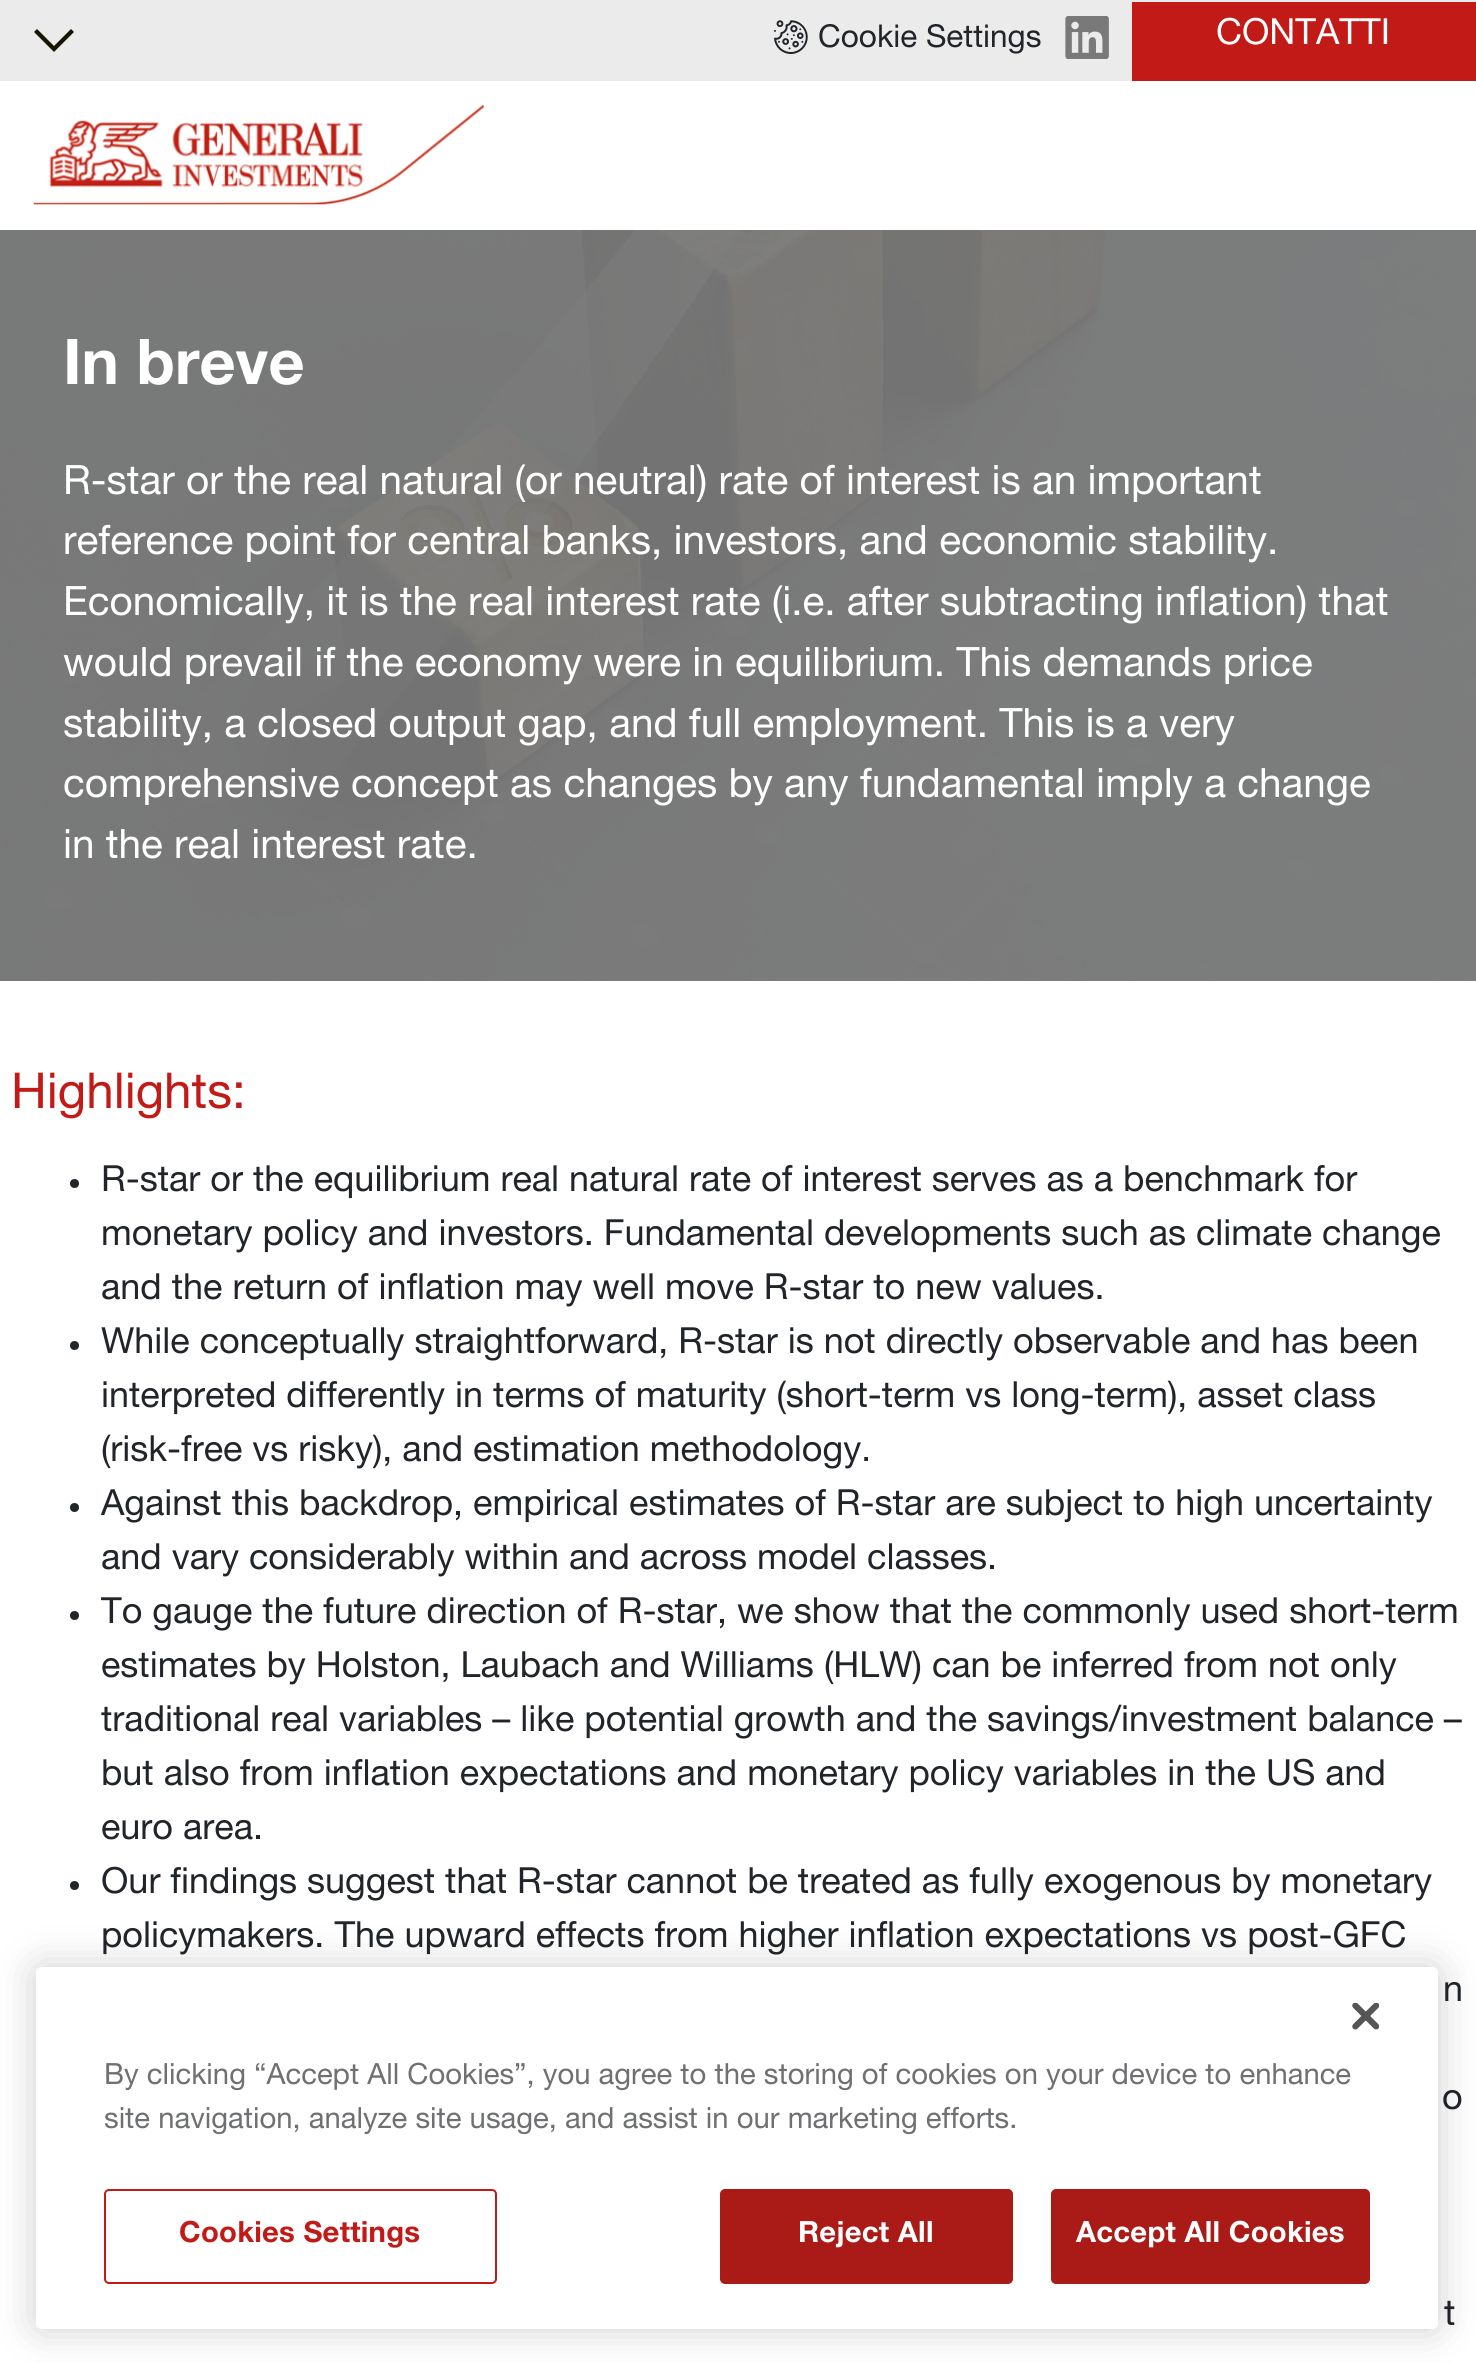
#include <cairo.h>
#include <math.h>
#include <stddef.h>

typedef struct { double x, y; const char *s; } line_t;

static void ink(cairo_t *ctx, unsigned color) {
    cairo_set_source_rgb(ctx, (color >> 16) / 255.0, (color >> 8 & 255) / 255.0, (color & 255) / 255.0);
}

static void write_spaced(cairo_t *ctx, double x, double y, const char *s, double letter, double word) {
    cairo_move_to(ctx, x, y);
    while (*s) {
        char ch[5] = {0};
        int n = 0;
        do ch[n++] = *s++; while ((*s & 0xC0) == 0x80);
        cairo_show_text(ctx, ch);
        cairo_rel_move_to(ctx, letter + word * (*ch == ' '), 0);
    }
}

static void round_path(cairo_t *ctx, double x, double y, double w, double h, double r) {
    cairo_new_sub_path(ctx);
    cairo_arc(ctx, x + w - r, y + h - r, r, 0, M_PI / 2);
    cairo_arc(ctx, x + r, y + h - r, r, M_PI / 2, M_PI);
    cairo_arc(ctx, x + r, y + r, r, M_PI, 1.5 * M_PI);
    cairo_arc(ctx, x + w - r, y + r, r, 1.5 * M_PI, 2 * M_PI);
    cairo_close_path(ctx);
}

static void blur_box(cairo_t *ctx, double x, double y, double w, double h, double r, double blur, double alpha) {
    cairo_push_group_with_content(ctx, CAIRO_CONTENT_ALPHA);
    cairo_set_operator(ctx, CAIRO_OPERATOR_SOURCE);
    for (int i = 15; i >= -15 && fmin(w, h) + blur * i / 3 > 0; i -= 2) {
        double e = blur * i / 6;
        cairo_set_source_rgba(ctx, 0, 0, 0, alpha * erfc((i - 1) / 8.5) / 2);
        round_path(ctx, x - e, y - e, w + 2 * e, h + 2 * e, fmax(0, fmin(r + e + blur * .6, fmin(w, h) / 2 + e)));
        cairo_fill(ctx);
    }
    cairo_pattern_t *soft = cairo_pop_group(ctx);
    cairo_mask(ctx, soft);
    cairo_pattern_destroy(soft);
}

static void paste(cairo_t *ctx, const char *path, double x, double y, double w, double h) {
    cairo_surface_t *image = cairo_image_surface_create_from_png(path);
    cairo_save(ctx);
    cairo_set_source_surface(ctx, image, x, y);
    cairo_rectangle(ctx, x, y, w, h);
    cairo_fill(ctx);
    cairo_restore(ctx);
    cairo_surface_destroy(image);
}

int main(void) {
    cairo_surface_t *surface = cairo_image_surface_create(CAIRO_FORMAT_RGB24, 1476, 2363);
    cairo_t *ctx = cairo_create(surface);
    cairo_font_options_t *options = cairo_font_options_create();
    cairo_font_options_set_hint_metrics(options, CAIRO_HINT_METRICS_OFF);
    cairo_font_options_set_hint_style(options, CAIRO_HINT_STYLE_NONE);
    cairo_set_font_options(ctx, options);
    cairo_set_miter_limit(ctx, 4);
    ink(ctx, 0xFFFFFF);
    cairo_paint(ctx);
    ink(ctx, 0xEBEBEB);
    cairo_rectangle(ctx, 0, 0, 1476, 81);
    cairo_fill(ctx);
    ink(ctx, 0x161602);
    cairo_set_fill_rule(ctx, CAIRO_FILL_RULE_EVEN_ODD);
    cairo_new_path(ctx);
    cairo_move_to(ctx, 34, 32);
    cairo_line_to(ctx, 37, 29);
    cairo_line_to(ctx, 54, 46);
    cairo_line_to(ctx, 71, 29);
    cairo_line_to(ctx, 74, 32);
    cairo_line_to(ctx, 54, 52);
    cairo_close_path(ctx);
    cairo_fill(ctx);
    paste(ctx, "media/1.png", 774, 20, 34, 34);
    cairo_select_font_face(ctx, "Helvetica Neue", CAIRO_FONT_SLANT_NORMAL, CAIRO_FONT_WEIGHT_NORMAL);
    cairo_set_font_size(ctx, 31.5);
    ink(ctx, 0x212529);
    cairo_move_to(ctx, 818, 47);
    cairo_show_text(ctx, "Cookie Settings");
    paste(ctx, "media/2.png", 1065, 16, 44, 43);
    ink(ctx, 0xC21B17);
    cairo_rectangle(ctx, 1132, 2, 344, 79);
    cairo_fill(ctx);
    cairo_set_font_size(ctx, 36);
    ink(ctx, 0xFFFFFF);
    cairo_move_to(ctx, 1216, 44);
    cairo_show_text(ctx, "CONTATTI");
    paste(ctx, "media/3.png", 33, 105, 451, 100);
    paste(ctx, "media/4.png", 0, 230, 1476, 751);
    cairo_set_source_rgba(ctx, 0.475, 0.475, 0.475, 0.95);
    cairo_rectangle(ctx, 0, 230, 1476, 751);
    cairo_fill(ctx);
    cairo_select_font_face(ctx, "Helvetica Neue", CAIRO_FONT_SLANT_NORMAL, CAIRO_FONT_WEIGHT_BOLD);
    cairo_set_font_size(ctx, 63);
    ink(ctx, 0xFFFFFF);
    cairo_move_to(ctx, 63, 384);
    cairo_show_text(ctx, "In breve");
    cairo_select_font_face(ctx, "Helvetica Neue", CAIRO_FONT_SLANT_NORMAL, CAIRO_FONT_WEIGHT_NORMAL);
    cairo_set_font_size(ctx, 40.5);
    {
        static const line_t items[] = {
            {63, 494, "R-star or the real natural (or neutral) rate of interest is an important"},
            {63, 554, "reference point for central banks, investors, and economic stability."},
            {63, 615, "Economically, it is the real interest rate (i.e. after subtracting inflation) that"},
            {63, 676, "would prevail if the economy were in equilibrium. This demands price"},
            {63, 737, "stability, a closed output gap, and full employment. This is a very"},
            {63, 797, "comprehensive concept as changes by any fundamental imply a change"},
            {63, 858, "in the real interest rate."},
        };
        for (size_t i = 0; i < sizeof items / sizeof *items; i++) {
            cairo_move_to(ctx, items[i].x, items[i].y);
            cairo_show_text(ctx, items[i].s);
        }
    }
    cairo_set_font_size(ctx, 49.5);
    ink(ctx, 0xC21B17);
    cairo_move_to(ctx, 11, 1108);
    cairo_show_text(ctx, "Highlights:");
    ink(ctx, 0x212529);
    cairo_new_path(ctx);
    cairo_arc(ctx, 74.5, 1183.5, 4.5, 0, 2 * M_PI);
    cairo_fill(ctx);
    cairo_set_font_size(ctx, 36);
    {
        static const line_t items[] = {
            {101, 1191, "R-star or the equilibrium real natural rate of interest serves as a benchmark for"},
            {101, 1245, "monetary policy and investors. Fundamental developments such as climate change"},
            {101, 1299, "and the return of inflation may well move R-star to new values."},
        };
        for (size_t i = 0; i < sizeof items / sizeof *items; i++) {
            cairo_move_to(ctx, items[i].x, items[i].y);
            cairo_show_text(ctx, items[i].s);
        }
    }
    cairo_new_path(ctx);
    cairo_arc(ctx, 74.5, 1345.5, 4.5, 0, 2 * M_PI);
    cairo_fill(ctx);
    {
        static const line_t items[] = {
            {101, 1353, "While conceptually straightforward, R-star is not directly observable and has been"},
            {101, 1407, "interpreted differently in terms of maturity (short-term vs long-term), asset class"},
            {101, 1461, "(risk-free vs risky), and estimation methodology."},
        };
        for (size_t i = 0; i < sizeof items / sizeof *items; i++) {
            cairo_move_to(ctx, items[i].x, items[i].y);
            cairo_show_text(ctx, items[i].s);
        }
    }
    cairo_new_path(ctx);
    cairo_arc(ctx, 74.5, 1507.5, 4.5, 0, 2 * M_PI);
    cairo_fill(ctx);
    cairo_move_to(ctx, 101, 1515);
    cairo_show_text(ctx, "Against this backdrop, empirical estimates of R-star are subject to high uncertainty");
    cairo_move_to(ctx, 101, 1569);
    cairo_show_text(ctx, "and vary considerably within and across model classes.");
    cairo_new_path(ctx);
    cairo_arc(ctx, 74.5, 1615.5, 4.5, 0, 2 * M_PI);
    cairo_fill(ctx);
    {
        static const line_t items[] = {
            {101, 1623, "To gauge the future direction of R-star, we show that the commonly used short-term"},
            {101, 1677, "estimates by Holston, Laubach and Williams (HLW) can be inferred from not only"},
            {101, 1731, "traditional real variables – like potential growth and the savings/investment balance –"},
            {101, 1785, "but also from inflation expectations and monetary policy variables in the US and"},
            {101, 1839, "euro area."},
        };
        for (size_t i = 0; i < sizeof items / sizeof *items; i++) {
            cairo_move_to(ctx, items[i].x, items[i].y);
            cairo_show_text(ctx, items[i].s);
        }
    }
    cairo_new_path(ctx);
    cairo_arc(ctx, 74.5, 1885.5, 4.5, 0, 2 * M_PI);
    cairo_fill(ctx);
    {
        static const line_t items[] = {
            {101, 1893, "Our findings suggest that R-star cannot be treated as fully exogenous by monetary"},
            {101, 1947, "policymakers. The upward effects from higher inflation expectations vs post-GFC"},
            {1443, 2001, "n"},
            {1442, 2109, "o"},
            {1444, 2325, "t"},
        };
        for (size_t i = 0; i < sizeof items / sizeof *items; i++) {
            cairo_move_to(ctx, items[i].x, items[i].y);
            cairo_show_text(ctx, items[i].s);
        }
    }
    ink(ctx, 0x000000);
    blur_box(ctx, 36, 1967, 1402, 362, 6, 20, 0.2);
    ink(ctx, 0xFFFFFF);
    round_path(ctx, 36, 1967, 1402, 362, 6);
    cairo_fill(ctx);
    paste(ctx, "media/5.png", 1352, 2003, 27, 27);
    cairo_set_font_size(ctx, 29.25);
    ink(ctx, 0x6F7072);
    cairo_move_to(ctx, 104, 2084);
    cairo_show_text(ctx, "By clicking “Accept All Cookies”, you agree to the storing of cookies on your device to enhance");
    cairo_move_to(ctx, 104, 2128);
    cairo_show_text(ctx, "site navigation, analyze site usage, and assist in our marketing efforts.");
    round_path(ctx, 105, 2190, 391, 93, 4);
    ink(ctx, 0xC21B17);
    cairo_stroke(ctx);
    cairo_select_font_face(ctx, "Helvetica Neue", CAIRO_FONT_SLANT_NORMAL, CAIRO_FONT_WEIGHT_BOLD);
    write_spaced(ctx, 179, 2242, "Cookies Settings", 0.25, 0);
    ink(ctx, 0xAA1B17);
    round_path(ctx, 721, 2190, 291, 93, 4);
    cairo_fill_preserve(ctx);
    cairo_stroke(ctx);
    ink(ctx, 0xFFFFFF);
    write_spaced(ctx, 798, 2242, "Reject All", 0.25, 0);
    ink(ctx, 0xAA1B17);
    round_path(ctx, 1052, 2190, 317, 93, 4);
    cairo_fill_preserve(ctx);
    cairo_stroke(ctx);
    ink(ctx, 0xFFFFFF);
    write_spaced(ctx, 1076, 2242, "Accept All Cookies", 0.25, 0);
    cairo_surface_write_to_png(surface, "image.png");
    cairo_font_options_destroy(options);
    cairo_destroy(ctx);
    cairo_surface_destroy(surface);
    return 0;
}
